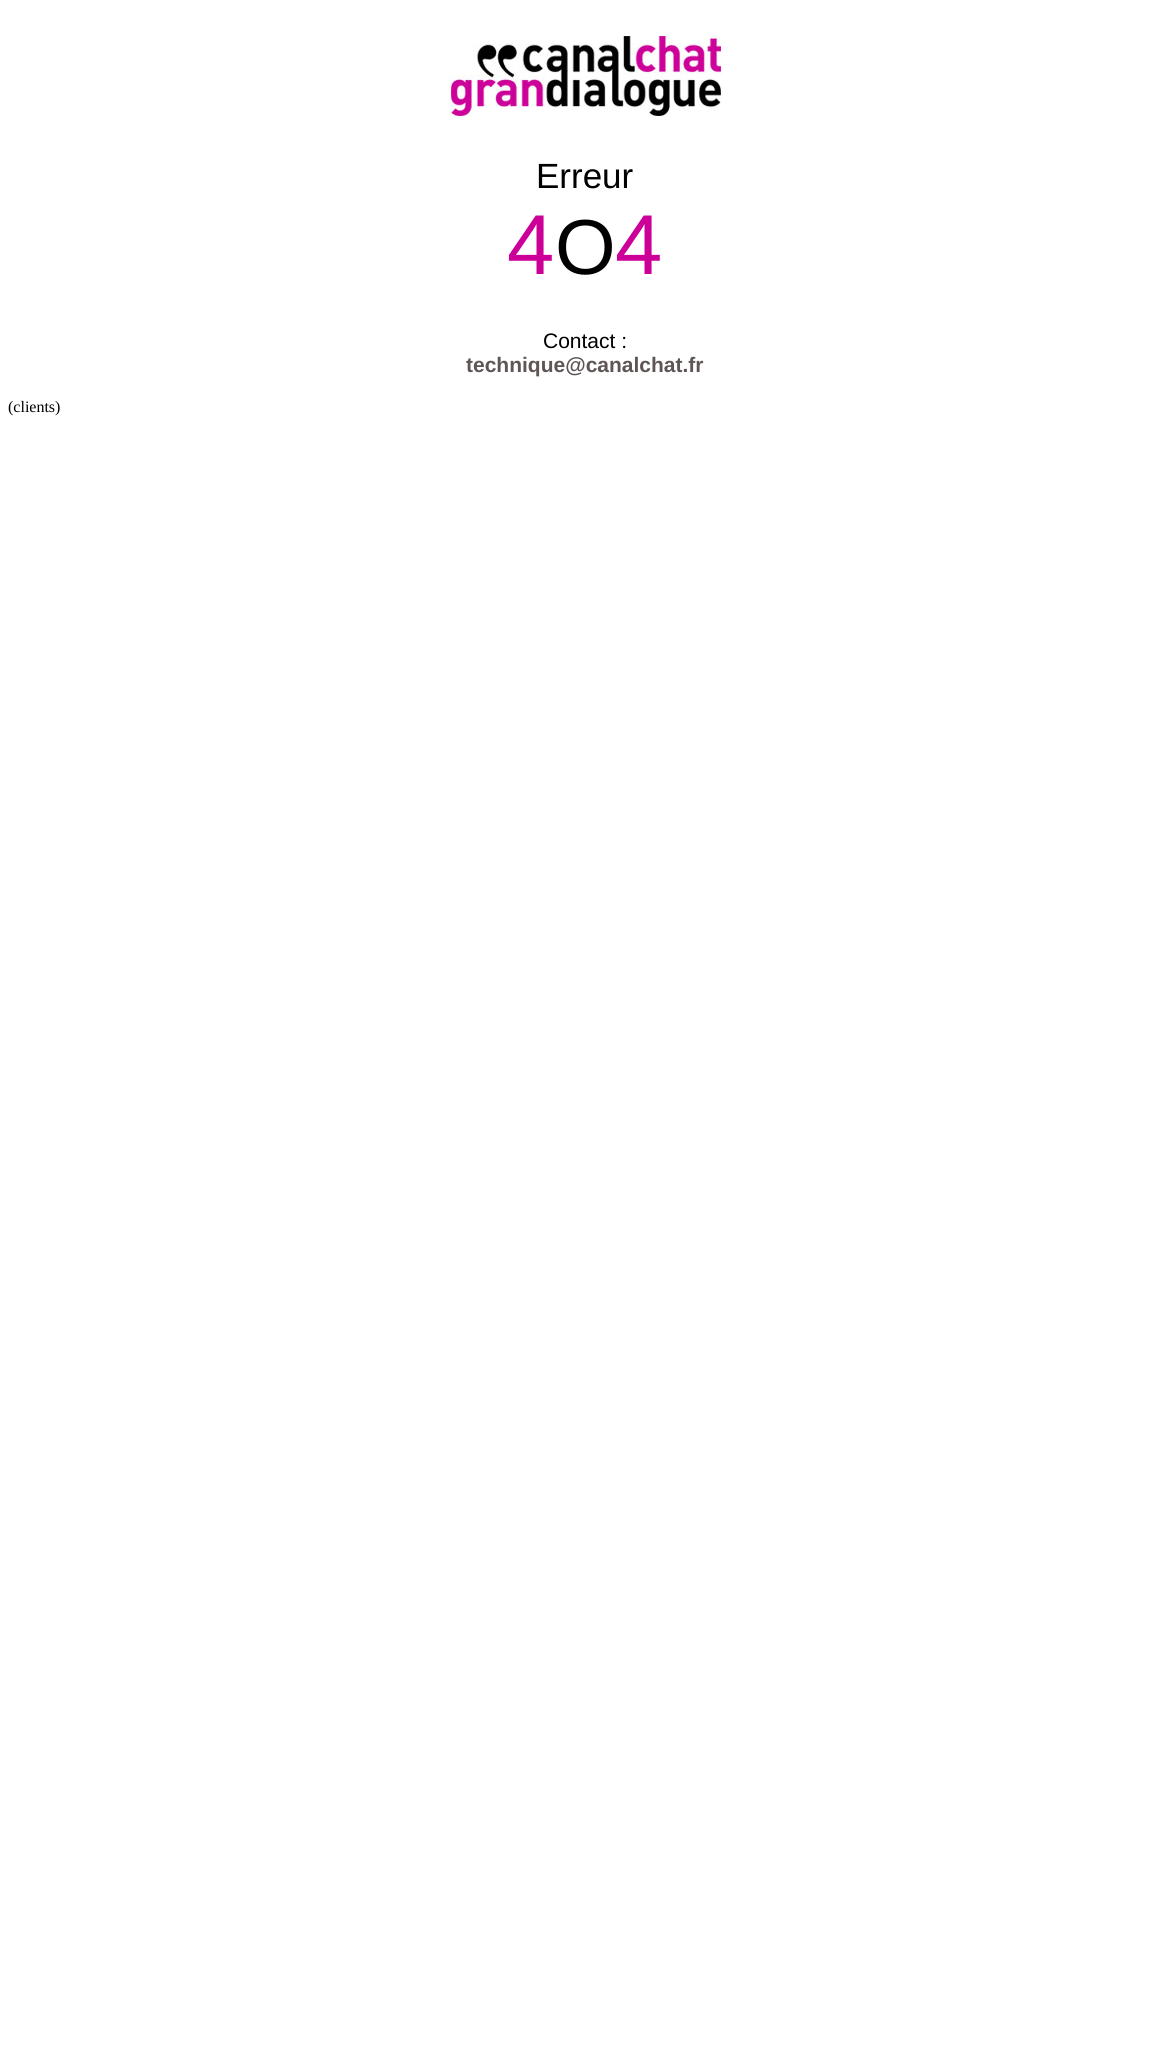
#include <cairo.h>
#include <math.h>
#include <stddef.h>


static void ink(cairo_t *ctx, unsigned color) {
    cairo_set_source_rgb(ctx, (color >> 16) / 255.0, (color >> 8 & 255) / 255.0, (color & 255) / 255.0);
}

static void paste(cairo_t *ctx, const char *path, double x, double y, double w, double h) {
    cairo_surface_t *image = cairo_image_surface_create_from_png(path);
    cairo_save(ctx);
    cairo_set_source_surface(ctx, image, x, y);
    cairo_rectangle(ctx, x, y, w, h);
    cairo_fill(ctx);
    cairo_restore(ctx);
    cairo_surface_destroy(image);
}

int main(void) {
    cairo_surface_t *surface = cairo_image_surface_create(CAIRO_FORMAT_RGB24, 1170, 2054);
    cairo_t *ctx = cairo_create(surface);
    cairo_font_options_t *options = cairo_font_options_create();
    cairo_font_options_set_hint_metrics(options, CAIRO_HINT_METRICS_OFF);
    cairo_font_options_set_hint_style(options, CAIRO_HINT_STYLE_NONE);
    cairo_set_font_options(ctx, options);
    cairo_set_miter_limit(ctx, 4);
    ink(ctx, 0xFFFFFF);
    cairo_paint(ctx);
    paste(ctx, "media/1.png", 448, 35, 275, 82);
    cairo_select_font_face(ctx, "Liberation Sans", CAIRO_FONT_SLANT_NORMAL, CAIRO_FONT_WEIGHT_NORMAL);
    cairo_set_font_size(ctx, 35);
    ink(ctx, 0x000000);
    cairo_move_to(ctx, 536, 188);
    cairo_show_text(ctx, "Erreur");
    cairo_set_font_size(ctx, 85);
    ink(ctx, 0xCC0099);
    cairo_move_to(ctx, 507, 274);
    cairo_show_text(ctx, "4");
    cairo_set_font_size(ctx, 78);
    ink(ctx, 0x000000);
    cairo_move_to(ctx, 555, 274);
    cairo_show_text(ctx, "O");
    cairo_set_font_size(ctx, 85);
    ink(ctx, 0xCC0099);
    cairo_move_to(ctx, 615, 274);
    cairo_show_text(ctx, "4");
    cairo_set_font_size(ctx, 21);
    ink(ctx, 0x000000);
    cairo_move_to(ctx, 543, 348);
    cairo_show_text(ctx, "Contact :");
    cairo_select_font_face(ctx, "Liberation Sans", CAIRO_FONT_SLANT_NORMAL, CAIRO_FONT_WEIGHT_BOLD);
    ink(ctx, 0x5F5555);
    cairo_move_to(ctx, 466, 372);
    cairo_show_text(ctx, "technique@canalchat.fr");
    cairo_select_font_face(ctx, "Liberation Serif", CAIRO_FONT_SLANT_NORMAL, CAIRO_FONT_WEIGHT_NORMAL);
    cairo_set_font_size(ctx, 16);
    ink(ctx, 0x000000);
    cairo_move_to(ctx, 8, 412);
    cairo_show_text(ctx, "(clients)");
    cairo_surface_write_to_png(surface, "image.png");
    cairo_font_options_destroy(options);
    cairo_destroy(ctx);
    cairo_surface_destroy(surface);
    return 0;
}
